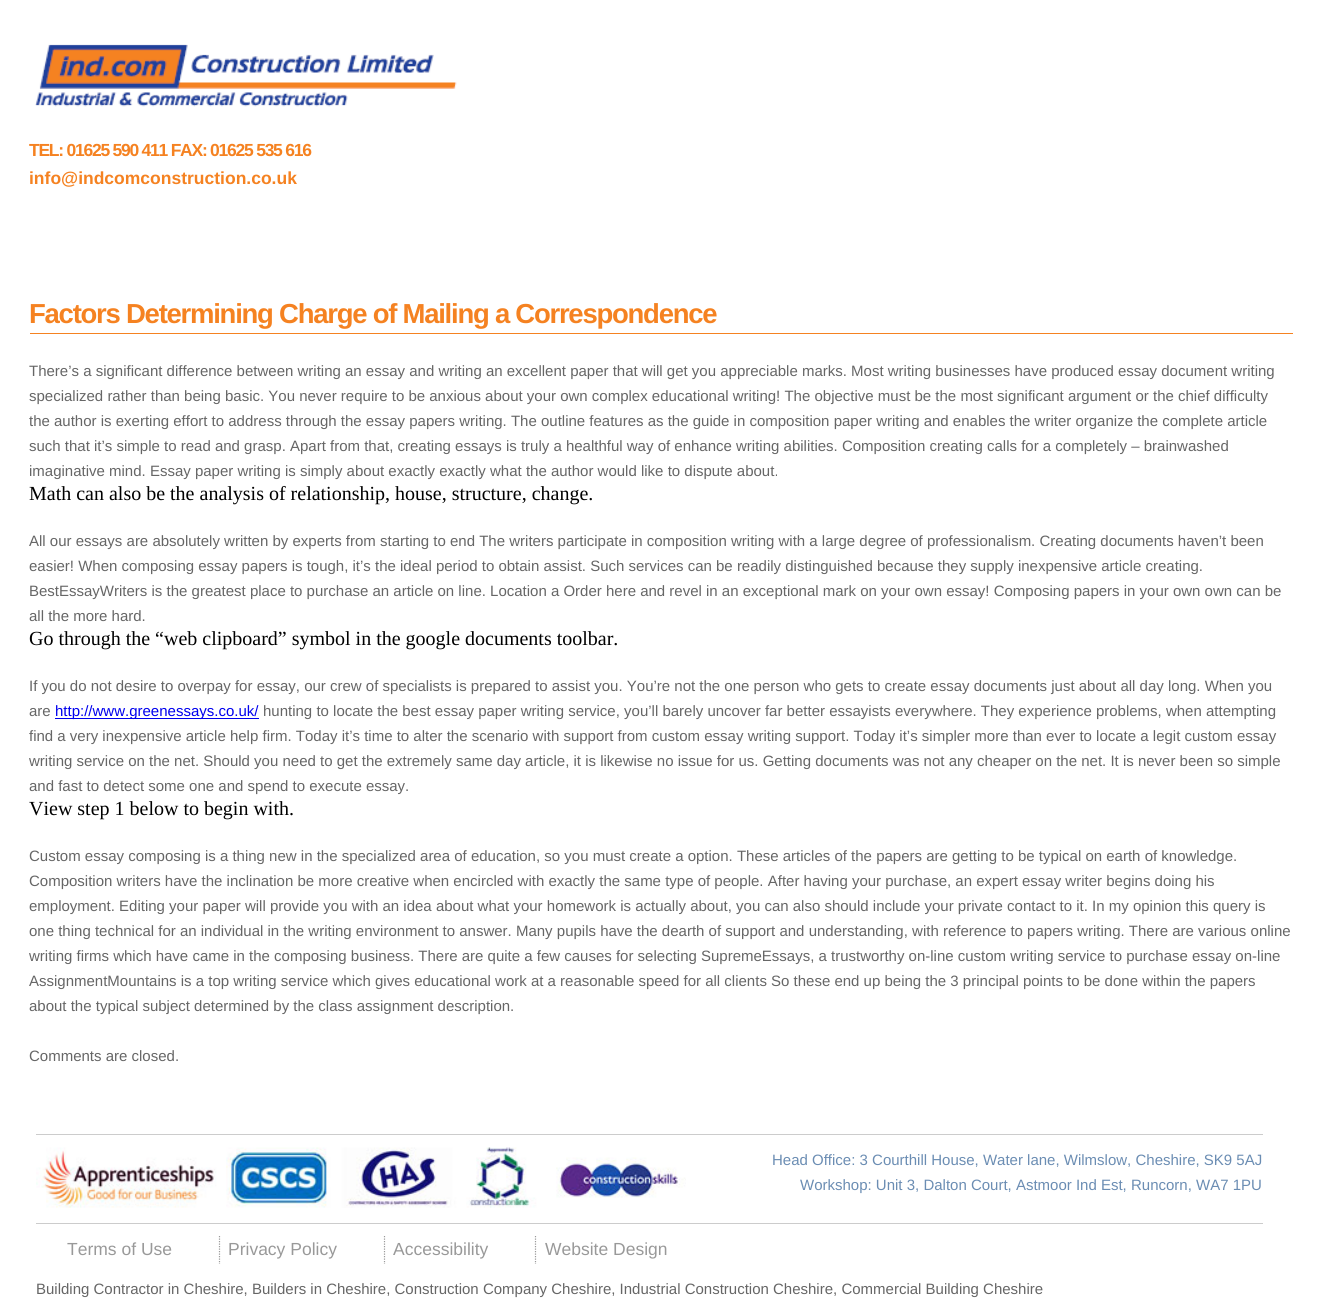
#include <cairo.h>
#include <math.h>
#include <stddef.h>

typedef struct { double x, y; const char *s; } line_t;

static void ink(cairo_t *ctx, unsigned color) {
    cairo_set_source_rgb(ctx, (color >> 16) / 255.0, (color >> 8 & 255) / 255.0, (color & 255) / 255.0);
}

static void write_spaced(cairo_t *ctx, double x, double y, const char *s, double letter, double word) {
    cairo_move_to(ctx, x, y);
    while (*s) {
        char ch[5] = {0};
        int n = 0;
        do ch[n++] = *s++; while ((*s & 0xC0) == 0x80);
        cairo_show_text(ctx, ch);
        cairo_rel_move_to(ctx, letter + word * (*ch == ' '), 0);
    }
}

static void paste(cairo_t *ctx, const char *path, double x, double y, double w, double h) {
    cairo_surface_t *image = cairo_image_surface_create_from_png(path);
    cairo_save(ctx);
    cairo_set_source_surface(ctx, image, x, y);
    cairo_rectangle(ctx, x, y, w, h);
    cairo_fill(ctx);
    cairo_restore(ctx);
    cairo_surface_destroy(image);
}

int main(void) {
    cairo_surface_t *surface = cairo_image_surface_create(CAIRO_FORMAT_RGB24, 1321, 1302);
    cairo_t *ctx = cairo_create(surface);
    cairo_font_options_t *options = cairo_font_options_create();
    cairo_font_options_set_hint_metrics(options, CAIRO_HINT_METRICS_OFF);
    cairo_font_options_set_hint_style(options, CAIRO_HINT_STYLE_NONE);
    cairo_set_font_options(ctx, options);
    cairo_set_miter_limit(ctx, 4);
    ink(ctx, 0xFFFFFF);
    cairo_paint(ctx);
    paste(ctx, "media/1.png", 35, 44, 422, 63);
    cairo_select_font_face(ctx, "Liberation Sans", CAIRO_FONT_SLANT_NORMAL, CAIRO_FONT_WEIGHT_BOLD);
    cairo_set_font_size(ctx, 17.5);
    ink(ctx, 0xF58221);
    write_spaced(ctx, 29, 156, "TEL: 01625 590 411 FAX: 01625 535 616", -1.25, 0);
    cairo_move_to(ctx, 29, 184);
    cairo_show_text(ctx, "info@indcomconstruction.co.uk");
    cairo_rectangle(ctx, 30, 333, 1263, 1);
    cairo_fill(ctx);
    cairo_set_font_size(ctx, 27.5);
    write_spaced(ctx, 29, 323, "Factors Determining Charge of Mailing a Correspondence", -1.25, 0);
    cairo_select_font_face(ctx, "Liberation Sans", CAIRO_FONT_SLANT_NORMAL, CAIRO_FONT_WEIGHT_NORMAL);
    cairo_set_font_size(ctx, 15);
    ink(ctx, 0x666666);
    {
        static const line_t items[] = {
            {29, 376, "There’s a significant difference between writing an essay and writing an excellent paper that will get you appreciable marks. Most writing businesses have produced essay document writing"},
            {29, 401, "specialized rather than being basic. You never require to be anxious about your own complex educational writing! The objective must be the most significant argument or the chief difficulty"},
            {29, 426, "the author is exerting effort to address through the essay papers writing. The outline features as the guide in composition paper writing and enables the writer organize the complete article"},
            {29, 451, "such that it’s simple to read and grasp. Apart from that, creating essays is truly a healthful way of enhance writing abilities. Composition creating calls for a completely – brainwashed"},
            {29, 476, "imaginative mind. Essay paper writing is simply about exactly exactly what the author would like to dispute about."},
        };
        for (size_t i = 0; i < sizeof items / sizeof *items; i++) {
            cairo_move_to(ctx, items[i].x, items[i].y);
            cairo_show_text(ctx, items[i].s);
        }
    }
    cairo_select_font_face(ctx, "Liberation Serif", CAIRO_FONT_SLANT_NORMAL, CAIRO_FONT_WEIGHT_NORMAL);
    cairo_set_font_size(ctx, 20);
    ink(ctx, 0x000000);
    cairo_move_to(ctx, 29, 500);
    cairo_show_text(ctx, "Math can also be the analysis of relationship, house, structure, change.");
    cairo_select_font_face(ctx, "Liberation Sans", CAIRO_FONT_SLANT_NORMAL, CAIRO_FONT_WEIGHT_NORMAL);
    cairo_set_font_size(ctx, 15);
    ink(ctx, 0x666666);
    {
        static const line_t items[] = {
            {29, 546, "All our essays are absolutely written by experts from starting to end The writers participate in composition writing with a large degree of professionalism. Creating documents haven’t been"},
            {29, 571, "easier! When composing essay papers is tough, it’s the ideal period to obtain assist. Such services can be readily distinguished because they supply inexpensive article creating."},
            {29, 596, "BestEssayWriters is the greatest place to purchase an article on line. Location a Order here and revel in an exceptional mark on your own essay! Composing papers in your own own can be"},
            {29, 621, "all the more hard."},
        };
        for (size_t i = 0; i < sizeof items / sizeof *items; i++) {
            cairo_move_to(ctx, items[i].x, items[i].y);
            cairo_show_text(ctx, items[i].s);
        }
    }
    cairo_select_font_face(ctx, "Liberation Serif", CAIRO_FONT_SLANT_NORMAL, CAIRO_FONT_WEIGHT_NORMAL);
    cairo_set_font_size(ctx, 20);
    ink(ctx, 0x000000);
    cairo_move_to(ctx, 29, 645);
    cairo_show_text(ctx, "Go through the “web clipboard” symbol in the google documents toolbar.");
    cairo_select_font_face(ctx, "Liberation Sans", CAIRO_FONT_SLANT_NORMAL, CAIRO_FONT_WEIGHT_NORMAL);
    cairo_set_font_size(ctx, 15);
    ink(ctx, 0x666666);
    cairo_move_to(ctx, 29, 691);
    cairo_show_text(ctx, "If you do not desire to overpay for essay, our crew of specialists is prepared to assist you. You’re not the one person who gets to create essay documents just about all day long. When you");
    cairo_move_to(ctx, 29, 716);
    cairo_show_text(ctx, "are");
    ink(ctx, 0x0000EE);
    cairo_rectangle(ctx, 55, 718, 204, 1);
    cairo_fill(ctx);
    cairo_move_to(ctx, 55, 716);
    cairo_show_text(ctx, "http://www.greenessays.co.uk/");
    ink(ctx, 0x666666);
    {
        static const line_t items[] = {
            {263, 716, "hunting to locate the best essay paper writing service, you’ll barely uncover far better essayists everywhere. They experience problems, when attempting"},
            {29, 741, "find a very inexpensive article help firm. Today it’s time to alter the scenario with support from custom essay writing support. Today it’s simpler more than ever to locate a legit custom essay"},
            {29, 766, "writing service on the net. Should you need to get the extremely same day article, it is likewise no issue for us. Getting documents was not any cheaper on the net. It is never been so simple"},
            {29, 791, "and fast to detect some one and spend to execute essay."},
        };
        for (size_t i = 0; i < sizeof items / sizeof *items; i++) {
            cairo_move_to(ctx, items[i].x, items[i].y);
            cairo_show_text(ctx, items[i].s);
        }
    }
    cairo_select_font_face(ctx, "Liberation Serif", CAIRO_FONT_SLANT_NORMAL, CAIRO_FONT_WEIGHT_NORMAL);
    cairo_set_font_size(ctx, 20);
    ink(ctx, 0x000000);
    cairo_move_to(ctx, 29, 815);
    cairo_show_text(ctx, "View step 1 below to begin with.");
    cairo_select_font_face(ctx, "Liberation Sans", CAIRO_FONT_SLANT_NORMAL, CAIRO_FONT_WEIGHT_NORMAL);
    cairo_set_font_size(ctx, 15);
    ink(ctx, 0x666666);
    {
        static const line_t items[] = {
            {29, 861, "Custom essay composing is a thing new in the specialized area of education, so you must create a option. These articles of the papers are getting to be typical on earth of knowledge."},
            {29, 886, "Composition writers have the inclination be more creative when encircled with exactly the same type of people. After having your purchase, an expert essay writer begins doing his"},
            {29, 911, "employment. Editing your paper will provide you with an idea about what your homework is actually about, you can also should include your private contact to it. In my opinion this query is"},
            {29, 936, "one thing technical for an individual in the writing environment to answer. Many pupils have the dearth of support and understanding, with reference to papers writing. There are various online"},
            {29, 961, "writing firms which have came in the composing business. There are quite a few causes for selecting SupremeEssays, a trustworthy on-line custom writing service to purchase essay on-line"},
            {29, 986, "AssignmentMountains is a top writing service which gives educational work at a reasonable speed for all clients So these end up being the 3 principal points to be done within the papers"},
            {29, 1011, "about the typical subject determined by the class assignment description."},
            {29, 1061, "Comments are closed."},
        };
        for (size_t i = 0; i < sizeof items / sizeof *items; i++) {
            cairo_move_to(ctx, items[i].x, items[i].y);
            cairo_show_text(ctx, items[i].s);
        }
    }
    ink(ctx, 0xCCCCCC);
    cairo_rectangle(ctx, 36, 1134, 1227, 1);
    cairo_fill(ctx);
    cairo_rectangle(ctx, 36, 1223, 1227, 1);
    cairo_fill(ctx);
    paste(ctx, "media/2.png", 36, 1147, 650, 61);
    ink(ctx, 0x6B8DB3);
    cairo_move_to(ctx, 772, 1165);
    cairo_show_text(ctx, "Head Office: 3 Courthill House, Water lane, Wilmslow, Cheshire, SK9 5AJ");
    cairo_move_to(ctx, 800, 1190);
    cairo_show_text(ctx, "Workshop: Unit 3, Dalton Court, Astmoor Ind Est, Runcorn, WA7 1PU");
    cairo_set_font_size(ctx, 17.5);
    ink(ctx, 0x999999);
    cairo_move_to(ctx, 67, 1255);
    cairo_show_text(ctx, "Terms of Use");
    cairo_new_path(ctx);
    cairo_move_to(ctx, 219.5, 1236);
    cairo_line_to(ctx, 219.5, 1264);
    cairo_set_line_width(ctx, 1.2);
    cairo_set_dash(ctx, (double[]){1.25, 1.25}, 2, 0);
    cairo_stroke(ctx);
    cairo_move_to(ctx, 228, 1255);
    cairo_show_text(ctx, "Privacy Policy");
    cairo_new_path(ctx);
    cairo_move_to(ctx, 384.5, 1236);
    cairo_line_to(ctx, 384.5, 1264);
    cairo_stroke(ctx);
    cairo_move_to(ctx, 393, 1255);
    cairo_show_text(ctx, "Accessibility");
    cairo_new_path(ctx);
    cairo_move_to(ctx, 535.5, 1236);
    cairo_line_to(ctx, 535.5, 1264);
    cairo_stroke(ctx);
    cairo_move_to(ctx, 545, 1255);
    cairo_show_text(ctx, "Website Design");
    cairo_set_font_size(ctx, 15);
    ink(ctx, 0x666666);
    cairo_move_to(ctx, 36, 1294);
    cairo_show_text(ctx, "Building Contractor in Cheshire, Builders in Cheshire, Construction Company Cheshire, Industrial Construction Cheshire, Commercial Building Cheshire");
    cairo_surface_write_to_png(surface, "image.png");
    cairo_font_options_destroy(options);
    cairo_destroy(ctx);
    cairo_surface_destroy(surface);
    return 0;
}
